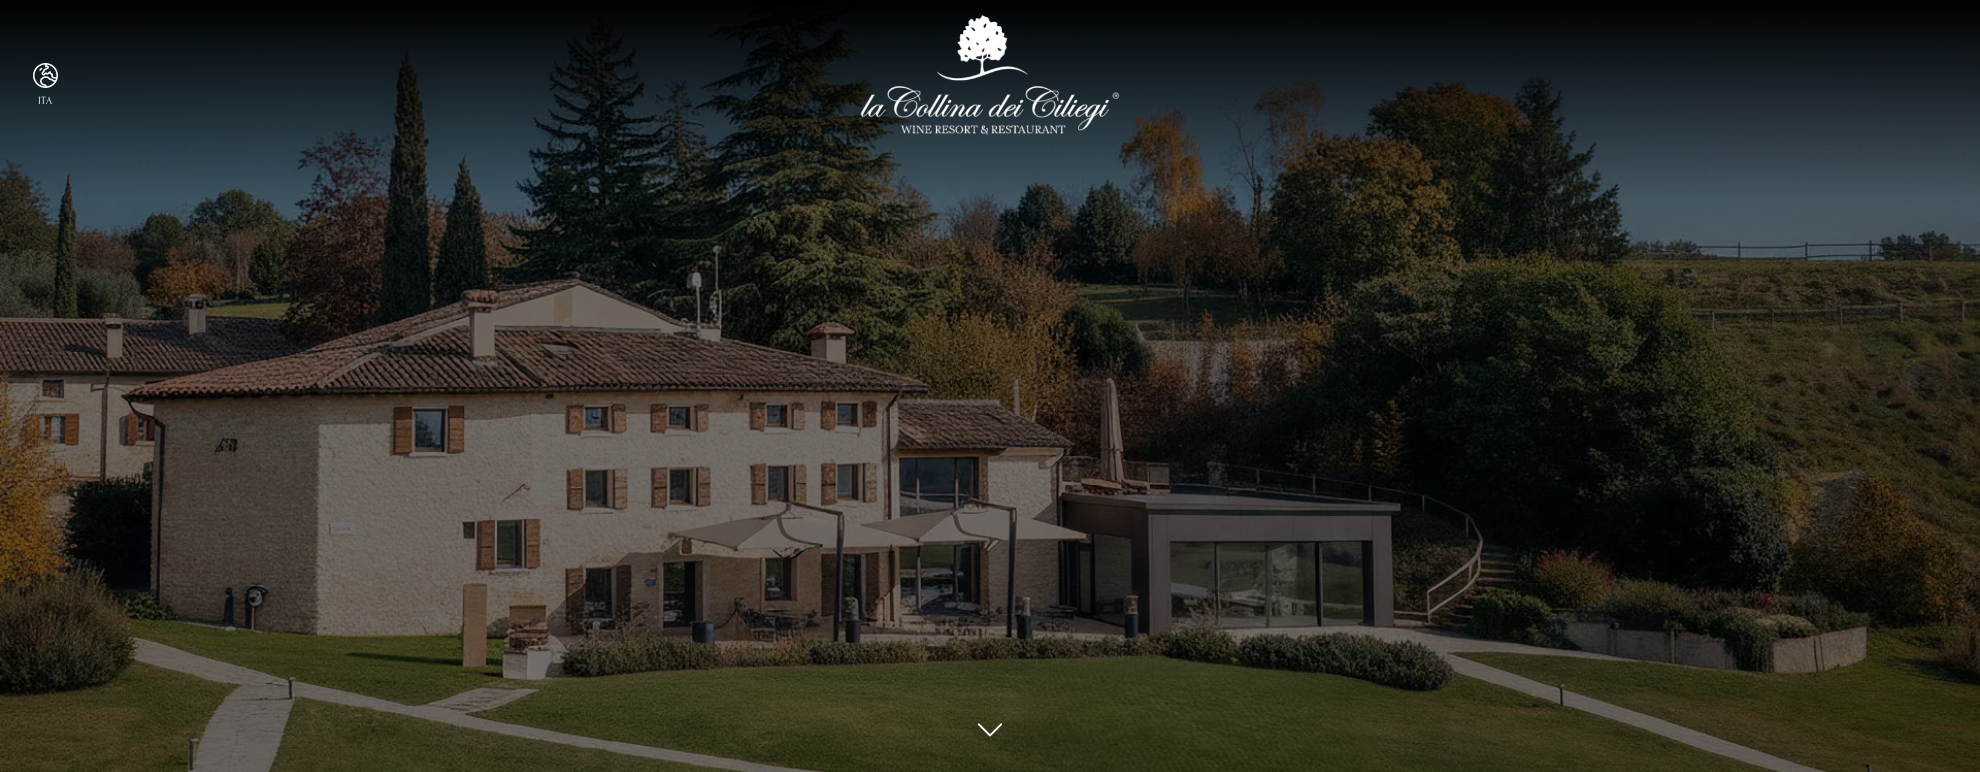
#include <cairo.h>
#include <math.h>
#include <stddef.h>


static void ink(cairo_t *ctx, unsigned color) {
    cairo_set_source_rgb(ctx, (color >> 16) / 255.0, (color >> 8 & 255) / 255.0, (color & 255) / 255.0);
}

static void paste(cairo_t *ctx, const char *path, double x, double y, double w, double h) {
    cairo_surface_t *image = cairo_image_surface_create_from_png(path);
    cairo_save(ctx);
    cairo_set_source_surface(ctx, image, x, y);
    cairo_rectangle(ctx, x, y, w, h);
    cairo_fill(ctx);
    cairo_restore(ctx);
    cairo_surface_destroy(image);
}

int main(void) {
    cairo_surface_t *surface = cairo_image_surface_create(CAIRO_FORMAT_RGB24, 1980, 772);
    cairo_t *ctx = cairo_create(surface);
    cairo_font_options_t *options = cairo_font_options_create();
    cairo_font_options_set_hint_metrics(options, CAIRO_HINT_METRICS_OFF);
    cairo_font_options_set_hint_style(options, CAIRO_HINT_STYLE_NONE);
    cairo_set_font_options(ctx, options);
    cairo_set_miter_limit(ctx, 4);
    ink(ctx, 0xFFFFFF);
    cairo_paint(ctx);
    paste(ctx, "media/1.png", 0, 0, 1980, 772);
    paste(ctx, "media/2.png", 977, 723, 26, 14);
    paste(ctx, "media/3.png", 33, 63, 25, 25);
    cairo_select_font_face(ctx, "Forum", CAIRO_FONT_SLANT_NORMAL, CAIRO_FONT_WEIGHT_NORMAL);
    cairo_set_font_size(ctx, 11);
    ink(ctx, 0xFFFFFF);
    cairo_move_to(ctx, 38, 104);
    cairo_show_text(ctx, "ITA");
    paste(ctx, "media/4.png", 860, 15, 260, 120);
    cairo_surface_write_to_png(surface, "image.png");
    cairo_font_options_destroy(options);
    cairo_destroy(ctx);
    cairo_surface_destroy(surface);
    return 0;
}
